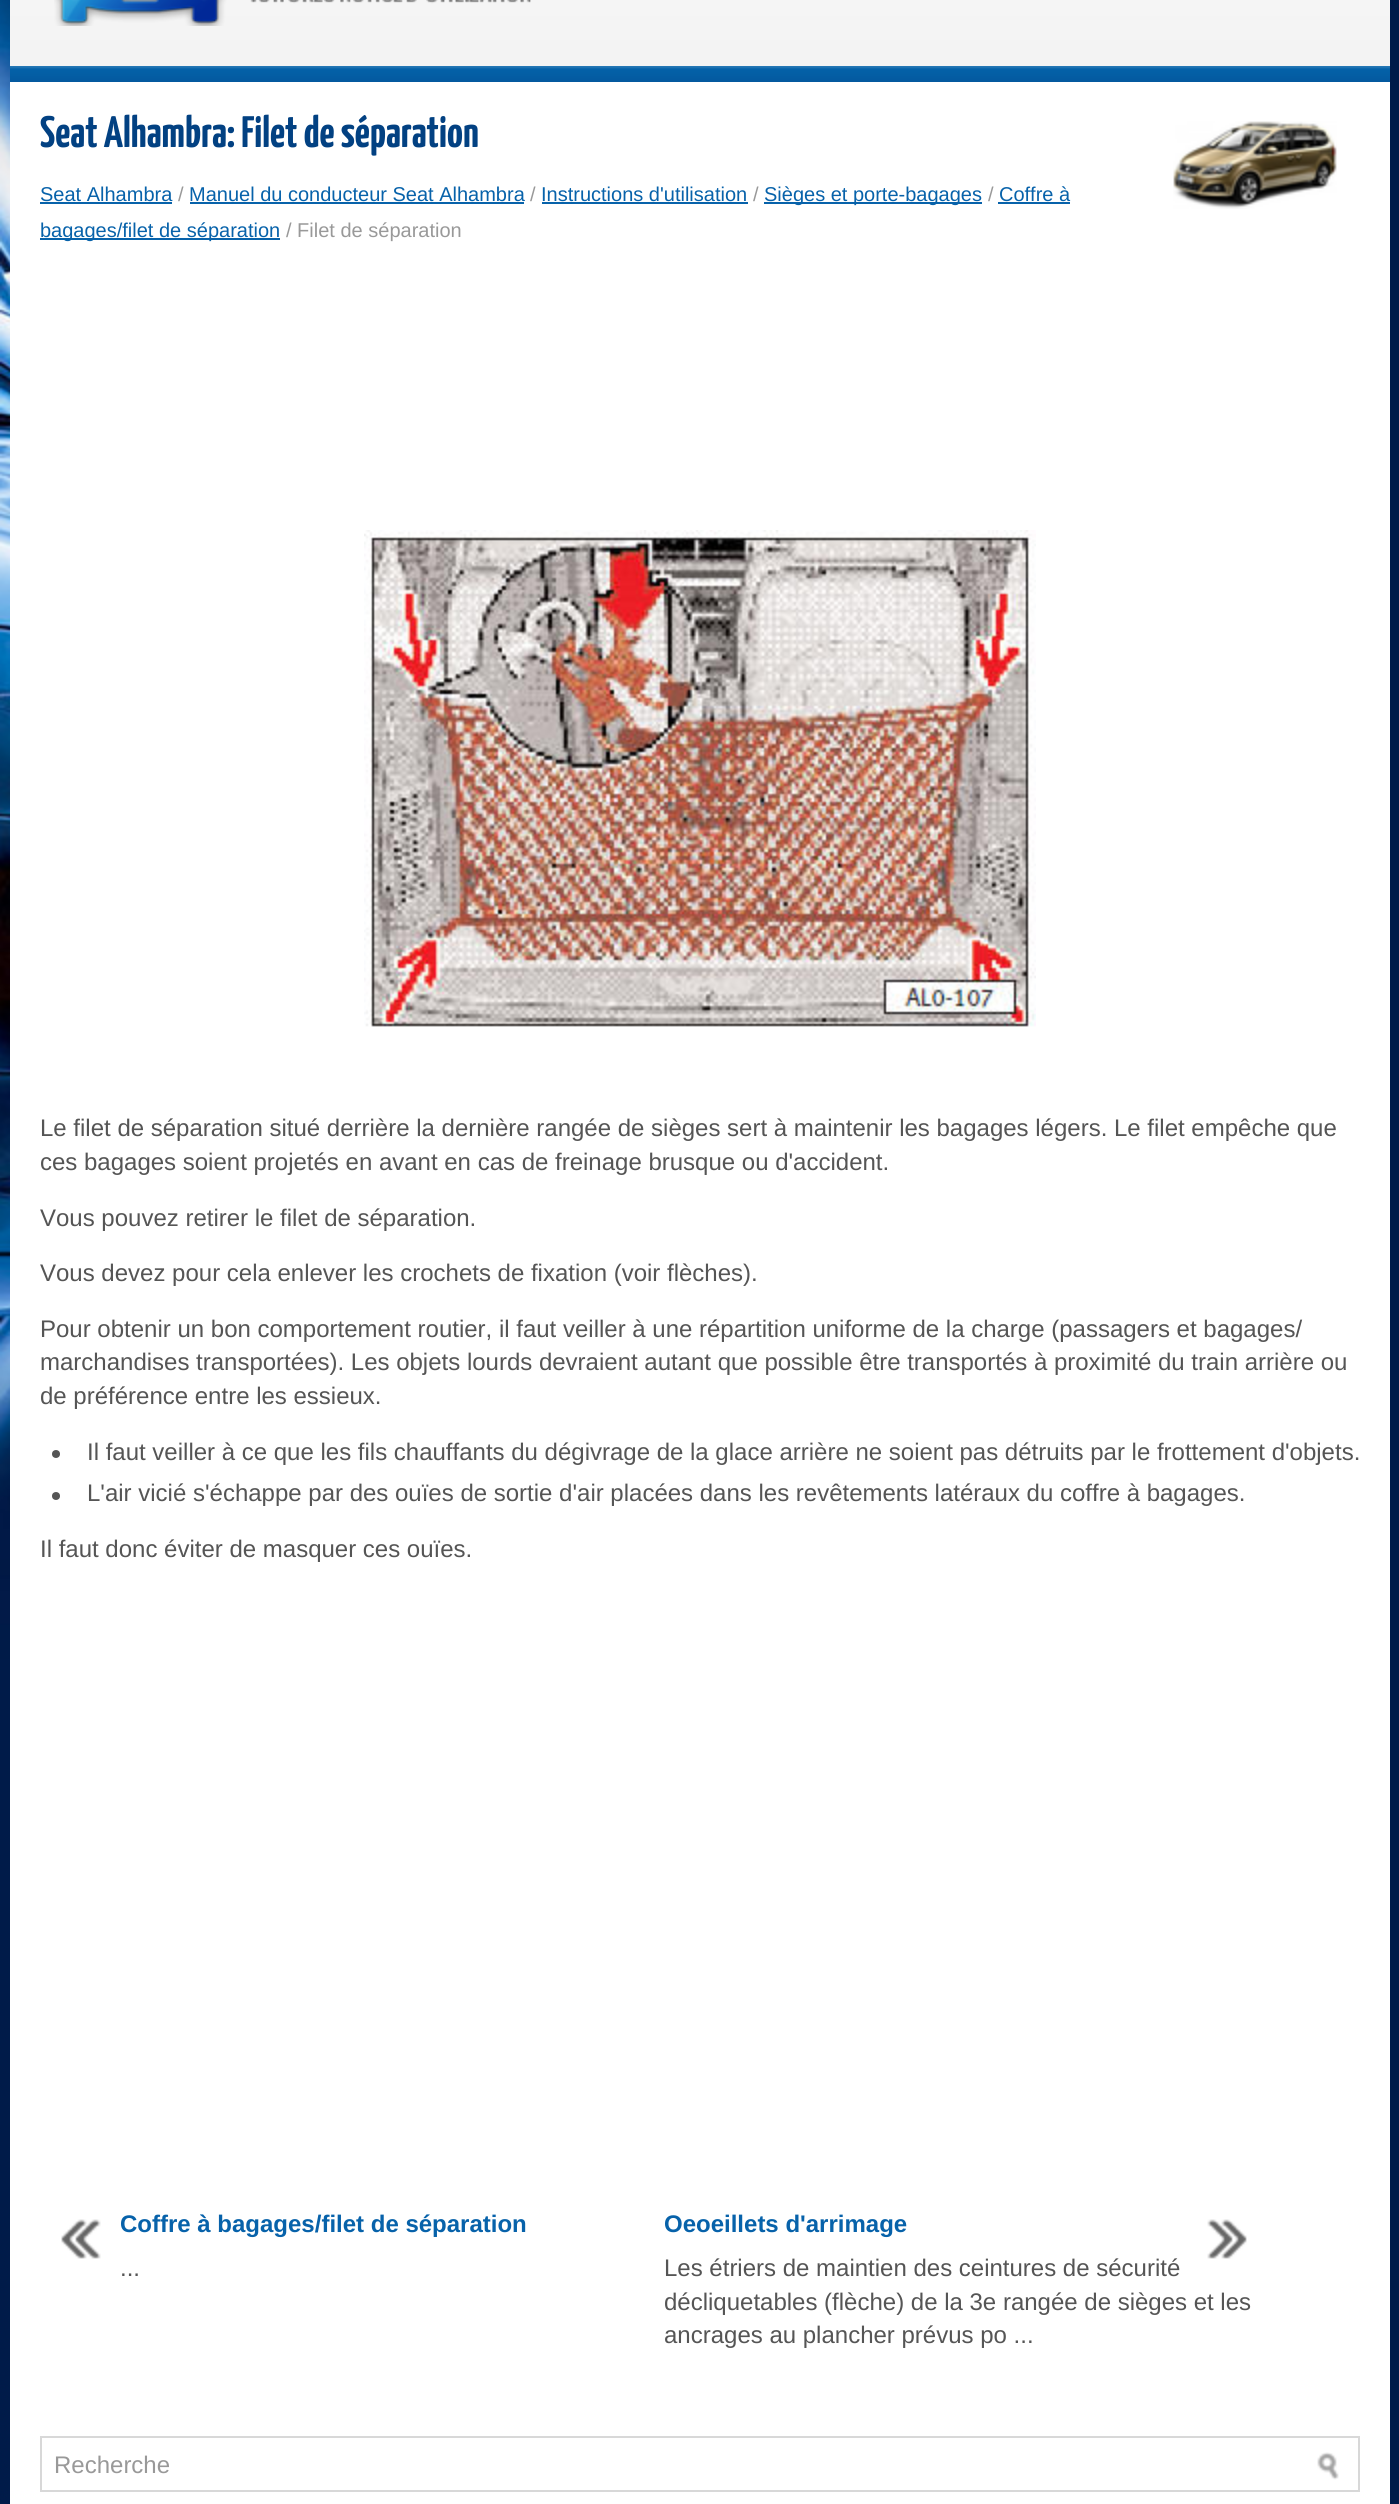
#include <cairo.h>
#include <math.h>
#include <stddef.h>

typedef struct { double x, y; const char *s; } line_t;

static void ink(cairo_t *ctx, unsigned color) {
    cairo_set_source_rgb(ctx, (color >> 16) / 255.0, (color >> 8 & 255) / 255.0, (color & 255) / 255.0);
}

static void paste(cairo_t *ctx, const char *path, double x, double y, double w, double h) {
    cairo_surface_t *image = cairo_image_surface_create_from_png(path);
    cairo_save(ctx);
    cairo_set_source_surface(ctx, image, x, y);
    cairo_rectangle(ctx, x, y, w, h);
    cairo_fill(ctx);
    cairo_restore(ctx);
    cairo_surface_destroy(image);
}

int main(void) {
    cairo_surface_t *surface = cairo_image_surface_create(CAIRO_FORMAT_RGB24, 1399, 2504);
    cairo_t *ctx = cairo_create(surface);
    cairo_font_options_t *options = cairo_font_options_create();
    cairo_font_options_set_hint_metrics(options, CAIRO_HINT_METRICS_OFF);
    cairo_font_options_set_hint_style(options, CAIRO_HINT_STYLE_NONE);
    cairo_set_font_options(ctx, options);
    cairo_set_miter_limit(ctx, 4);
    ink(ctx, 0x001B49);
    cairo_paint(ctx);
    paste(ctx, "media/1.png", 0, 0, 10, 1659);
    paste(ctx, "media/2.png", 10, 0, 1380, 66);
    paste(ctx, "media/3.png", 54, 0, 477, 26);
    paste(ctx, "media/4.png", 10, 66, 1380, 16);
    ink(ctx, 0xFFFFFF);
    cairo_rectangle(ctx, 10, 82, 1380, 2422);
    cairo_fill(ctx);
    cairo_select_font_face(ctx, "Yanone Kaffeesatz", CAIRO_FONT_SLANT_NORMAL, CAIRO_FONT_WEIGHT_BOLD);
    cairo_set_font_size(ctx, 44);
    ink(ctx, 0x024182);
    cairo_move_to(ctx, 40, 147);
    cairo_show_text(ctx, "Seat Alhambra: Filet de séparation");
    paste(ctx, "media/5.png", 1173, 121, 164, 88);
    cairo_select_font_face(ctx, "Liberation Sans", CAIRO_FONT_SLANT_NORMAL, CAIRO_FONT_WEIGHT_NORMAL);
    cairo_set_font_size(ctx, 20);
    ink(ctx, 0x0762AA);
    cairo_move_to(ctx, 40, 201);
    cairo_show_text(ctx, "Seat Alhambra");
    cairo_rectangle(ctx, 40, 202, 132, 2);
    cairo_fill(ctx);
    ink(ctx, 0x999999);
    cairo_move_to(ctx, 178, 201);
    cairo_show_text(ctx, "/");
    ink(ctx, 0x0762AA);
    cairo_move_to(ctx, 189, 201);
    cairo_show_text(ctx, "Manuel du conducteur Seat Alhambra");
    cairo_rectangle(ctx, 190, 202, 334, 2);
    cairo_fill(ctx);
    ink(ctx, 0x999999);
    cairo_move_to(ctx, 530, 201);
    cairo_show_text(ctx, "/");
    ink(ctx, 0x0762AA);
    cairo_move_to(ctx, 541, 201);
    cairo_show_text(ctx, "Instructions d'utilisation");
    cairo_rectangle(ctx, 542, 202, 206, 2);
    cairo_fill(ctx);
    ink(ctx, 0x999999);
    cairo_move_to(ctx, 753, 201);
    cairo_show_text(ctx, "/");
    ink(ctx, 0x0762AA);
    cairo_rectangle(ctx, 764, 202, 218, 2);
    cairo_fill(ctx);
    cairo_move_to(ctx, 764, 201);
    cairo_show_text(ctx, "Sièges et porte-bagages");
    ink(ctx, 0x999999);
    cairo_move_to(ctx, 988, 201);
    cairo_show_text(ctx, "/");
    ink(ctx, 0x0762AA);
    cairo_move_to(ctx, 999, 201);
    cairo_show_text(ctx, "Coffre à");
    cairo_rectangle(ctx, 998, 202, 72, 2);
    cairo_fill(ctx);
    cairo_rectangle(ctx, 40, 238, 240, 2);
    cairo_fill(ctx);
    cairo_move_to(ctx, 40, 237);
    cairo_show_text(ctx, "bagages/filet de séparation");
    ink(ctx, 0x999999);
    cairo_move_to(ctx, 286, 237);
    cairo_show_text(ctx, "/ Filet de séparation");
    paste(ctx, "media/6.png", 364, 530, 672, 497);
    cairo_set_font_size(ctx, 24);
    ink(ctx, 0x555555);
    {
        static const line_t items[] = {
            {40, 1136, "Le filet de séparation situé derrière la dernière rangée de sièges sert à maintenir les bagages légers. Le filet empêche que"},
            {40, 1170, "ces bagages soient projetés en avant en cas de freinage brusque ou d'accident."},
            {40, 1226, "Vous pouvez retirer le filet de séparation."},
            {40, 1281, "Vous devez pour cela enlever les crochets de fixation (voir flèches)."},
            {40, 1337, "Pour obtenir un bon comportement routier, il faut veiller à une répartition uniforme de la charge (passagers et bagages/"},
            {40, 1370, "marchandises transportées). Les objets lourds devraient autant que possible être transportés à proximité du train arrière ou"},
            {40, 1404, "de préférence entre les essieux."},
        };
        for (size_t i = 0; i < sizeof items / sizeof *items; i++) {
            cairo_move_to(ctx, items[i].x, items[i].y);
            cairo_show_text(ctx, items[i].s);
        }
    }
    cairo_new_path(ctx);
    cairo_arc(ctx, 56, 1454, 4, 0, 2 * M_PI);
    cairo_fill(ctx);
    cairo_move_to(ctx, 87, 1460);
    cairo_show_text(ctx, "Il faut veiller à ce que les fils chauffants du dégivrage de la glace arrière ne soient pas détruits par le frottement d'objets.");
    cairo_new_path(ctx);
    cairo_arc(ctx, 56, 1496, 4, 0, 2 * M_PI);
    cairo_fill(ctx);
    cairo_move_to(ctx, 87, 1501);
    cairo_show_text(ctx, "L'air vicié s'échappe par des ouïes de sortie d'air placées dans les revêtements latéraux du coffre à bagages.");
    cairo_move_to(ctx, 40, 1557);
    cairo_show_text(ctx, "Il faut donc éviter de masquer ces ouïes.");
    paste(ctx, "media/7.png", 61, 2219, 40, 40);
    cairo_select_font_face(ctx, "Liberation Sans", CAIRO_FONT_SLANT_NORMAL, CAIRO_FONT_WEIGHT_BOLD);
    ink(ctx, 0x0762AA);
    cairo_move_to(ctx, 120, 2232);
    cairo_show_text(ctx, "Coffre à bagages/filet de séparation");
    cairo_select_font_face(ctx, "Liberation Sans", CAIRO_FONT_SLANT_NORMAL, CAIRO_FONT_WEIGHT_NORMAL);
    ink(ctx, 0x555555);
    cairo_move_to(ctx, 120, 2276);
    cairo_show_text(ctx, "...");
    cairo_select_font_face(ctx, "Liberation Sans", CAIRO_FONT_SLANT_NORMAL, CAIRO_FONT_WEIGHT_BOLD);
    ink(ctx, 0x0762AA);
    cairo_move_to(ctx, 664, 2232);
    cairo_show_text(ctx, "Oeoeillets d'arrimage");
    paste(ctx, "media/8.png", 1207, 2219, 40, 40);
    cairo_select_font_face(ctx, "Liberation Sans", CAIRO_FONT_SLANT_NORMAL, CAIRO_FONT_WEIGHT_NORMAL);
    ink(ctx, 0x555555);
    {
        static const line_t items[] = {
            {664, 2276, "Les étriers de maintien des ceintures de sécurité"},
            {664, 2310, "décliquetables (flèche) de la 3e rangée de sièges et les"},
            {664, 2343, "ancrages au plancher prévus po ..."},
        };
        for (size_t i = 0; i < sizeof items / sizeof *items; i++) {
            cairo_move_to(ctx, items[i].x, items[i].y);
            cairo_show_text(ctx, items[i].s);
        }
    }
    cairo_rectangle(ctx, 41, 2437, 1318, 54);
    ink(ctx, 0xD8D8D8);
    cairo_stroke(ctx);
    ink(ctx, 0x999999);
    cairo_move_to(ctx, 54, 2473);
    cairo_show_text(ctx, "Recherche");
    paste(ctx, "media/9.png", 1317, 2452, 22, 28);
    cairo_surface_write_to_png(surface, "image.png");
    cairo_font_options_destroy(options);
    cairo_destroy(ctx);
    cairo_surface_destroy(surface);
    return 0;
}
